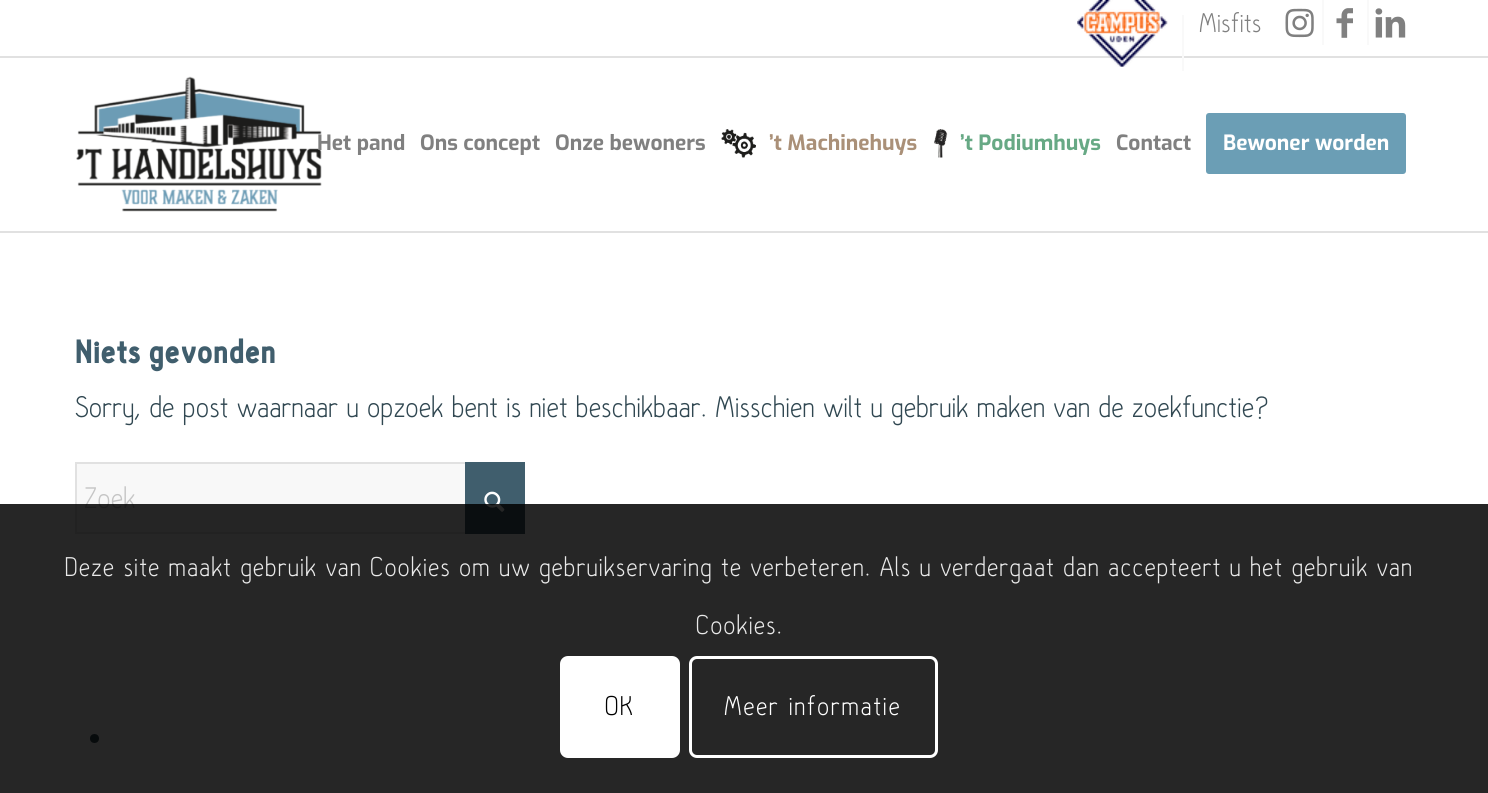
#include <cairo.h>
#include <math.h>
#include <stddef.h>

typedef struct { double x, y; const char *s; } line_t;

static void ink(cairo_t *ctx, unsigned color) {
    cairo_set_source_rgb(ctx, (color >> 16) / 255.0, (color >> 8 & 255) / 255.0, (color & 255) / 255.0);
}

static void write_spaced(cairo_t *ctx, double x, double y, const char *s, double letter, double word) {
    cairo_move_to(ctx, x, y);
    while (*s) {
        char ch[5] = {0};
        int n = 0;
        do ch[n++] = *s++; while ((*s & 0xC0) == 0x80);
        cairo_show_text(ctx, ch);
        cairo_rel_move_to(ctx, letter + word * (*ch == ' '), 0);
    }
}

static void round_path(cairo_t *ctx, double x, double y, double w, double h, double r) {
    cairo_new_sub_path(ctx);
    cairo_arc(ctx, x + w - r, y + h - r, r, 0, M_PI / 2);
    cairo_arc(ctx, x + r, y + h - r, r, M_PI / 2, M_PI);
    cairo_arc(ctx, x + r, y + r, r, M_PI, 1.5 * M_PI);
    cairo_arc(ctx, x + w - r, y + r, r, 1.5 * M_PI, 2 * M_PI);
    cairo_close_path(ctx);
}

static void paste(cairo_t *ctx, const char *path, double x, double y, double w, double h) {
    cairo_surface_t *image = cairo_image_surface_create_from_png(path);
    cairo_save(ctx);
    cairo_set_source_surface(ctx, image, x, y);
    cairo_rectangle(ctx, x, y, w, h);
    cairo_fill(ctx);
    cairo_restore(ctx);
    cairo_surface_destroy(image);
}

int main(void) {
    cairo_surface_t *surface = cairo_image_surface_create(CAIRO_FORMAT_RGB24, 1488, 793);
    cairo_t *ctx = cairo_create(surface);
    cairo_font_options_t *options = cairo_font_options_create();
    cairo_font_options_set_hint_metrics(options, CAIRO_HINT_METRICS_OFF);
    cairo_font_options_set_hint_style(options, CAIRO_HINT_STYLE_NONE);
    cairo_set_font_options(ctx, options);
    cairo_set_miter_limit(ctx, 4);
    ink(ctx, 0xFFFFFF);
    cairo_paint(ctx);
    ink(ctx, 0xE1E1E1);
    cairo_rectangle(ctx, 0, 56, 1488, 2);
    cairo_fill(ctx);
    ink(ctx, 0xF9F9F9);
    cairo_rectangle(ctx, 1182, 15, 2, 56);
    cairo_fill(ctx);
    paste(ctx, "media/1.png", 1077, 0, 91, 67);
    cairo_select_font_face(ctx, "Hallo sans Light", CAIRO_FONT_SLANT_NORMAL, CAIRO_FONT_WEIGHT_NORMAL);
    cairo_set_font_size(ctx, 30);
    ink(ctx, 0x808080);
    cairo_move_to(ctx, 1199, 32);
    cairo_show_text(ctx, "Misfits");
    ink(ctx, 0xF9F9F9);
    cairo_rectangle(ctx, 1322, 0, 2, 45);
    cairo_fill(ctx);
    paste(ctx, "media/2.png", 1285, 8, 29, 30);
    cairo_rectangle(ctx, 1367, 0, 2, 45);
    cairo_fill(ctx);
    paste(ctx, "media/3.png", 1336, 8, 17, 30);
    paste(ctx, "media/4.png", 1375, 8, 31, 30);
    ink(ctx, 0xE1E1E1);
    cairo_rectangle(ctx, 0, 231, 1488, 2);
    cairo_fill(ctx);
    paste(ctx, "media/5.png", 76, 76, 246, 136);
    cairo_select_font_face(ctx, "Exo", CAIRO_FONT_SLANT_NORMAL, CAIRO_FONT_WEIGHT_BOLD);
    cairo_set_font_size(ctx, 21);
    ink(ctx, 0x808080);
    {
        static const line_t items[] = {
            {317, 150, "Het pand"},
            {420, 150, "Ons concept"},
            {555, 150, "Onze bewoners"},
        };
        for (size_t i = 0; i < sizeof items / sizeof *items; i++) {
            cairo_move_to(ctx, items[i].x, items[i].y);
            cairo_show_text(ctx, items[i].s);
        }
    }
    paste(ctx, "media/6.png", 721, 129, 35, 29);
    ink(ctx, 0xAA9078);
    cairo_move_to(ctx, 769, 150);
    cairo_show_text(ctx, "’t Machinehuys");
    paste(ctx, "media/7.png", 934, 129, 14, 29);
    ink(ctx, 0x67A985);
    cairo_move_to(ctx, 960, 150);
    cairo_show_text(ctx, "’t Podiumhuys");
    ink(ctx, 0x808080);
    cairo_move_to(ctx, 1116, 150);
    cairo_show_text(ctx, "Contact");
    ink(ctx, 0x6B9EB5);
    round_path(ctx, 1207.5, 114.5, 197, 58, 1.5);
    cairo_fill_preserve(ctx);
    cairo_set_line_width(ctx, 3);
    cairo_stroke(ctx);
    ink(ctx, 0xFFFFFF);
    cairo_move_to(ctx, 1223, 150);
    cairo_show_text(ctx, "Bewoner worden");
    cairo_select_font_face(ctx, "Hallo sans Black", CAIRO_FONT_SLANT_NORMAL, CAIRO_FONT_WEIGHT_NORMAL);
    cairo_set_font_size(ctx, 33);
    ink(ctx, 0x405E6D);
    cairo_move_to(ctx, 75, 363);
    cairo_show_text(ctx, "Niets gevonden");
    cairo_select_font_face(ctx, "Hallo sans Light", CAIRO_FONT_SLANT_NORMAL, CAIRO_FONT_WEIGHT_NORMAL);
    ink(ctx, 0x304751);
    cairo_move_to(ctx, 75, 417);
    cairo_show_text(ctx, "Sorry, de post waarnaar u opzoek bent is niet beschikbaar. Misschien wilt u gebruik maken van de zoekfunctie?");
    ink(ctx, 0xF8F8F8);
    cairo_rectangle(ctx, 77, 464, 388, 68);
    cairo_fill(ctx);
    cairo_rectangle(ctx, 76, 463, 448, 70);
    ink(ctx, 0xE1E1E1);
    cairo_set_line_width(ctx, 2);
    cairo_stroke(ctx);
    ink(ctx, 0xC5C5C5);
    cairo_move_to(ctx, 84, 508);
    cairo_show_text(ctx, "Zoek");
    ink(ctx, 0x405E6D);
    cairo_rectangle(ctx, 465, 462, 60, 72);
    cairo_fill(ctx);
    paste(ctx, "media/8.png", 484, 491, 21, 21);
    ink(ctx, 0x304751);
    cairo_arc(ctx, 94.5, 738.5, 4.5, 0, 2 * M_PI);
    cairo_fill(ctx);
    cairo_set_source_rgba(ctx, 0, 0, 0, 0.85);
    cairo_rectangle(ctx, 0, 504, 1488, 289);
    cairo_fill(ctx);
    cairo_set_font_size(ctx, 30);
    ink(ctx, 0xE9E9E9);
    write_spaced(ctx, 65, 576, "Deze site maakt gebruik van Cookies om uw gebruikservaring te verbeteren. Als u verdergaat dan accepteert u het gebruik van", 0.9, 0);
    write_spaced(ctx, 696, 634, "Cookies.", 0.9, 0);
    ink(ctx, 0xFFFFFF);
    round_path(ctx, 560, 656, 120, 102, 8);
    cairo_fill(ctx);
    ink(ctx, 0x000000);
    write_spaced(ctx, 605, 715, "OK", 1.5, 0);
    round_path(ctx, 690.5, 657.5, 246, 99, 6.5);
    ink(ctx, 0xFFFFFF);
    cairo_set_line_width(ctx, 3);
    cairo_stroke(ctx);
    write_spaced(ctx, 724, 715, "Meer informatie", 1.5, 0);
    cairo_surface_write_to_png(surface, "image.png");
    cairo_font_options_destroy(options);
    cairo_destroy(ctx);
    cairo_surface_destroy(surface);
    return 0;
}
